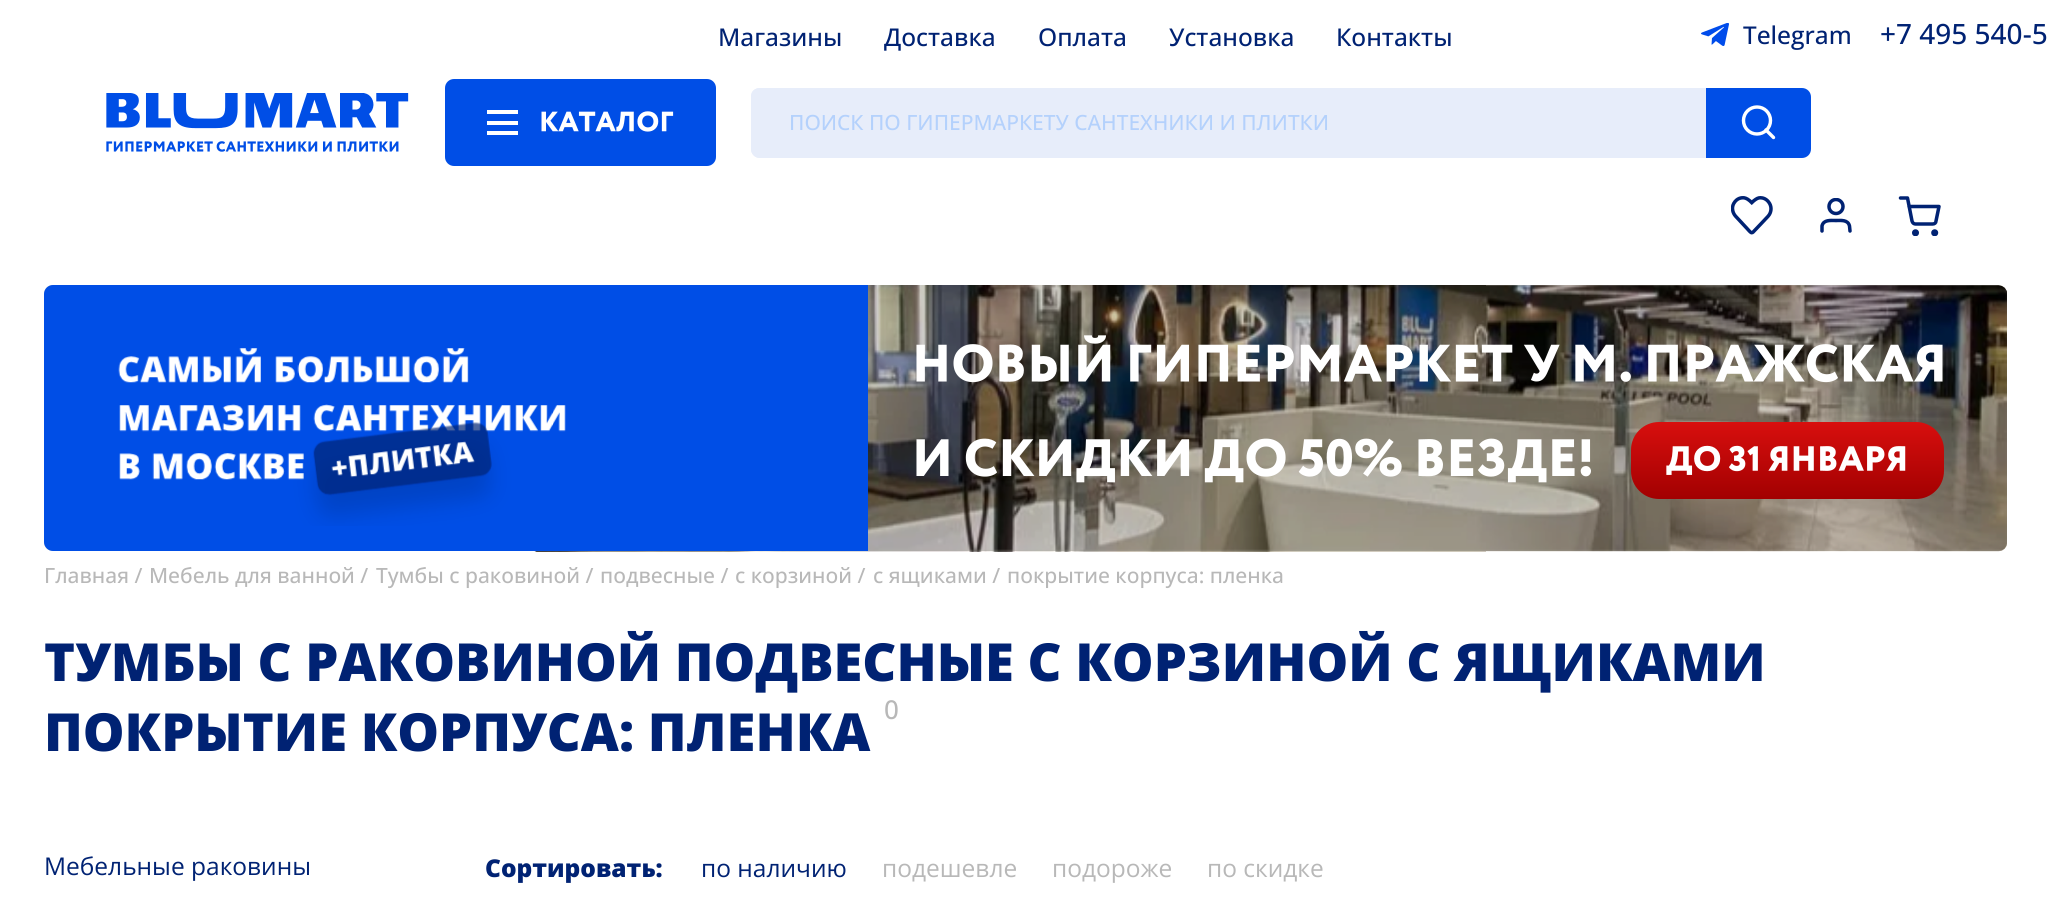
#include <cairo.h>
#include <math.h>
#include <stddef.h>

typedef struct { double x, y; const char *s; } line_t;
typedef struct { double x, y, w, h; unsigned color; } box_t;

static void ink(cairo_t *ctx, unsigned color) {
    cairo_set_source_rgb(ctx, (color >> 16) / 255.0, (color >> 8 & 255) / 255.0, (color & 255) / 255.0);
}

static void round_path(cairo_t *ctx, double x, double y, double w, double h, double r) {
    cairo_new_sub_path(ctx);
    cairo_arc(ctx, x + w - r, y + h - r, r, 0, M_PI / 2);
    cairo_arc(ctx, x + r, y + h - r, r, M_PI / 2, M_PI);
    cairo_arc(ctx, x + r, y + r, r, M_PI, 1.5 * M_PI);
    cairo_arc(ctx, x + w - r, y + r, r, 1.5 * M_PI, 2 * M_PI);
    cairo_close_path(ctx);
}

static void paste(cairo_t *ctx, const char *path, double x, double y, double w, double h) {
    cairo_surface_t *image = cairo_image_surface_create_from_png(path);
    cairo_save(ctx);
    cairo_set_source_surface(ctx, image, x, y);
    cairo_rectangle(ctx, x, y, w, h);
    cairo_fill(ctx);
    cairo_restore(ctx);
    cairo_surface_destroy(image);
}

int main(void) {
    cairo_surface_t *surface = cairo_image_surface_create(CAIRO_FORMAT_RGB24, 2050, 899);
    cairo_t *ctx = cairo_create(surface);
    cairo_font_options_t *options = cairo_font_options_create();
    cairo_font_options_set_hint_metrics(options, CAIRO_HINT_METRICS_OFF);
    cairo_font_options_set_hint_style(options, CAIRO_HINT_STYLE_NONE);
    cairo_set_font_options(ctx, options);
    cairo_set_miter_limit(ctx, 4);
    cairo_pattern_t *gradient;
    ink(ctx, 0xFFFFFF);
    cairo_paint(ctx);
    cairo_select_font_face(ctx, "Open Sans Medium", CAIRO_FONT_SLANT_NORMAL, CAIRO_FONT_WEIGHT_NORMAL);
    cairo_set_font_size(ctx, 24.5);
    ink(ctx, 0x002273);
    {
        static const line_t items[] = {
            {718, 46, "Магазины"},
            {884, 46, "Доставка"},
            {1038, 46, "Оплата"},
            {1169, 46, "Установка"},
            {1336, 46, "Контакты"},
        };
        for (size_t i = 0; i < sizeof items / sizeof *items; i++) {
            cairo_move_to(ctx, items[i].x, items[i].y);
            cairo_show_text(ctx, items[i].s);
        }
    }
    paste(ctx, "media/1.png", 1701, 23, 28, 23);
    cairo_move_to(ctx, 1743, 44);
    cairo_show_text(ctx, "Telegram");
    cairo_set_font_size(ctx, 28);
    cairo_move_to(ctx, 1880, 44);
    cairo_show_text(ctx, "+7 495 540-5");
    paste(ctx, "media/2.png", 106, 93, 303, 59);
    ink(ctx, 0x004EE6);
    round_path(ctx, 445, 79, 271, 87, 9);
    cairo_fill(ctx);
    {
        static const box_t items[] = {
            {487, 110, 31, 4, 0xFFFFFF},
            {487, 121, 31, 4, 0xFFFFFF},
            {487, 131, 31, 4, 0xFFFFFF},
        };
        for (size_t i = 0; i < sizeof items / sizeof *items; i++) {
            ink(ctx, items[i].color);
            cairo_rectangle(ctx, items[i].x, items[i].y, items[i].w, items[i].h);
            cairo_fill(ctx);
        }
    }
    paste(ctx, "media/3.png", 541, 111, 133, 21);
    ink(ctx, 0xE7EDFA);
    cairo_new_path(ctx);
    cairo_move_to(ctx, 760, 88);
    cairo_line_to(ctx, 1706, 88);
    cairo_line_to(ctx, 1706, 158);
    cairo_line_to(ctx, 760, 158);
    cairo_curve_to(ctx, 755, 158, 751, 154, 751, 149);
    cairo_line_to(ctx, 751, 97);
    cairo_curve_to(ctx, 751, 92, 755, 88, 760, 88);
    cairo_close_path(ctx);
    cairo_fill(ctx);
    cairo_set_fill_rule(ctx, CAIRO_FILL_RULE_EVEN_ODD);
    cairo_new_path(ctx);
    cairo_move_to(ctx, 760, 88);
    cairo_line_to(ctx, 1706, 88);
    cairo_line_to(ctx, 1706, 158);
    cairo_line_to(ctx, 760, 158);
    cairo_curve_to(ctx, 755, 158, 751, 154, 751, 149);
    cairo_line_to(ctx, 751, 96);
    cairo_curve_to(ctx, 751, 91, 755, 88, 760, 88);
    cairo_close_path(ctx);
    cairo_move_to(ctx, 760, 91);
    cairo_line_to(ctx, 1706, 91);
    cairo_line_to(ctx, 1706, 154);
    cairo_line_to(ctx, 760, 154);
    cairo_curve_to(ctx, 757, 154, 754, 152, 754, 149);
    cairo_line_to(ctx, 754, 96);
    cairo_curve_to(ctx, 754, 93, 757, 91, 760, 91);
    cairo_close_path(ctx);
    cairo_fill(ctx);
    cairo_set_font_size(ctx, 21);
    ink(ctx, 0xB4D1FC);
    cairo_move_to(ctx, 789, 130);
    cairo_show_text(ctx, "ПОИСК ПО ГИПЕРМАРКЕТУ САНТЕХНИКИ И ПЛИТКИ");
    ink(ctx, 0x004EE6);
    cairo_new_path(ctx);
    cairo_move_to(ctx, 1706, 88);
    cairo_line_to(ctx, 1802, 88);
    cairo_curve_to(ctx, 1807, 88, 1811, 92, 1811, 97);
    cairo_line_to(ctx, 1811, 149);
    cairo_curve_to(ctx, 1811, 154, 1807, 158, 1802, 158);
    cairo_line_to(ctx, 1706, 158);
    cairo_close_path(ctx);
    cairo_fill(ctx);
    cairo_arc(ctx, 1757, 120.5, 13.5, 0, 2 * M_PI);
    ink(ctx, 0xFFFFFF);
    cairo_set_line_width(ctx, 3.4);
    cairo_stroke(ctx);
    cairo_new_path(ctx);
    cairo_move_to(ctx, 1773.5, 137.5);
    cairo_line_to(ctx, 1766, 130);
    cairo_set_line_cap(ctx, CAIRO_LINE_CAP_ROUND);
    cairo_set_line_join(ctx, CAIRO_LINE_JOIN_ROUND);
    cairo_stroke(ctx);
    paste(ctx, "media/4.png", 1731, 196, 42, 39);
    cairo_new_path(ctx);
    cairo_move_to(ctx, 1850, 231);
    cairo_line_to(ctx, 1849.5, 226);
    cairo_curve_to(ctx, 1848, 219.5, 1841, 220.5, 1836, 220.5);
    cairo_curve_to(ctx, 1830.5, 220.5, 1823.5, 219.5, 1822, 226);
    cairo_line_to(ctx, 1822, 231);
    ink(ctx, 0x002273);
    cairo_set_line_width(ctx, 3.5);
    cairo_stroke(ctx);
    cairo_save(ctx);
    cairo_set_fill_rule(ctx, CAIRO_FILL_RULE_WINDING);
    cairo_rectangle(ctx, 1820, 198, 32, 35);
    cairo_clip(ctx);
    cairo_arc(ctx, 1836, 206.5, 7, 0, 2 * M_PI);
    cairo_set_line_cap(ctx, CAIRO_LINE_CAP_BUTT);
    cairo_set_line_join(ctx, CAIRO_LINE_JOIN_MITER);
    cairo_stroke(ctx);
    cairo_restore(ctx);
    cairo_save(ctx);
    cairo_set_fill_rule(ctx, CAIRO_FILL_RULE_WINDING);
    cairo_rectangle(ctx, 1899, 196, 42, 40);
    cairo_clip(ctx);
    cairo_arc(ctx, 1915.5, 232.8, 1.8, 0, 2 * M_PI);
    cairo_set_line_cap(ctx, CAIRO_LINE_CAP_BUTT);
    cairo_set_line_join(ctx, CAIRO_LINE_JOIN_MITER);
    cairo_stroke(ctx);
    cairo_arc(ctx, 1934.7, 232.8, 1.8, 0, 2 * M_PI);
    cairo_stroke(ctx);
    cairo_restore(ctx);
    cairo_new_path(ctx);
    cairo_move_to(ctx, 1900.5, 198);
    cairo_line_to(ctx, 1907.5, 198);
    cairo_line_to(ctx, 1912, 221);
    cairo_curve_to(ctx, 1912.5, 223, 1914, 224, 1915.5, 224);
    cairo_line_to(ctx, 1932.5, 224);
    cairo_curve_to(ctx, 1934.5, 224, 1936, 223, 1936, 221);
    cairo_line_to(ctx, 1939, 206.5);
    cairo_line_to(ctx, 1909, 206.5);
    cairo_stroke(ctx);
    ink(ctx, 0xD7D5C7);
    round_path(ctx, 44, 285, 1963, 266, 9);
    cairo_fill(ctx);
    paste(ctx, "media/6.png", 534, 285, 1473, 267);
    ink(ctx, 0x004EE6);
    cairo_new_path(ctx);
    cairo_move_to(ctx, 53, 285);
    cairo_line_to(ctx, 868, 285);
    cairo_line_to(ctx, 868, 551);
    cairo_line_to(ctx, 53, 551);
    cairo_curve_to(ctx, 48, 551, 44, 547, 44, 542);
    cairo_line_to(ctx, 44, 294);
    cairo_curve_to(ctx, 44, 289, 48, 285, 53, 285);
    cairo_close_path(ctx);
    cairo_fill(ctx);
    paste(ctx, "media/5.png", 118, 348, 448, 178);
    cairo_set_source_rgba(ctx, 0, 0, 0, 0.2);
    cairo_new_path(ctx);
    cairo_move_to(ctx, 868, 285);
    cairo_line_to(ctx, 1998, 285);
    cairo_curve_to(ctx, 2003, 285, 2007, 289, 2007, 294);
    cairo_line_to(ctx, 2007, 542);
    cairo_curve_to(ctx, 2007, 547, 2003, 551, 1998, 551);
    cairo_line_to(ctx, 868, 551);
    cairo_close_path(ctx);
    cairo_fill(ctx);
    paste(ctx, "media/7.png", 916, 335, 1027, 48);
    paste(ctx, "media/8.png", 916, 438, 675, 45);
    gradient = cairo_pattern_create_linear(1788, 422, 1788, 499);
    cairo_pattern_add_color_stop_rgba(gradient, 0, 0.847, 0.059, 0.055, 1);
    cairo_pattern_add_color_stop_rgba(gradient, 1, 0.635, 0, 0.004, 1);
    cairo_set_source(ctx, gradient);
    cairo_pattern_destroy(gradient);
    round_path(ctx, 1631, 422, 313, 77, 28);
    cairo_fill(ctx);
    paste(ctx, "media/9.png", 1666, 445, 240, 30);
    ink(ctx, 0xB8B8B8);
    {
        static const line_t items[] = {
            {44, 583, "Главная /"},
            {149, 583, "Мебель для ванной /"},
            {376, 583, "Тумбы с раковиной /"},
            {600, 583, "подвесные /"},
            {735, 583, "с корзиной /"},
            {873, 583, "с ящиками /"},
            {1007, 583, "покрытие корпуса: пленка"},
        };
        for (size_t i = 0; i < sizeof items / sizeof *items; i++) {
            cairo_move_to(ctx, items[i].x, items[i].y);
            cairo_show_text(ctx, items[i].s);
        }
    }
    cairo_select_font_face(ctx, "Open Sans ExtraBold", CAIRO_FONT_SLANT_NORMAL, CAIRO_FONT_WEIGHT_NORMAL);
    cairo_set_font_size(ctx, 52.5);
    ink(ctx, 0x002273);
    cairo_move_to(ctx, 44, 681);
    cairo_show_text(ctx, "ТУМБЫ С РАКОВИНОЙ ПОДВЕСНЫЕ С КОРЗИНОЙ С ЯЩИКАМИ");
    cairo_select_font_face(ctx, "Open Sans Medium", CAIRO_FONT_SLANT_NORMAL, CAIRO_FONT_WEIGHT_NORMAL);
    cairo_set_font_size(ctx, 26);
    ink(ctx, 0xB8B8B8);
    cairo_move_to(ctx, 884, 719);
    cairo_show_text(ctx, "0");
    cairo_select_font_face(ctx, "Open Sans ExtraBold", CAIRO_FONT_SLANT_NORMAL, CAIRO_FONT_WEIGHT_NORMAL);
    cairo_set_font_size(ctx, 52.5);
    ink(ctx, 0x002273);
    cairo_move_to(ctx, 44, 751);
    cairo_show_text(ctx, "ПОКРЫТИЕ КОРПУСА: ПЛЕНКА");
    cairo_select_font_face(ctx, "Open Sans", CAIRO_FONT_SLANT_NORMAL, CAIRO_FONT_WEIGHT_NORMAL);
    cairo_set_font_size(ctx, 24.5);
    cairo_move_to(ctx, 44, 875);
    cairo_show_text(ctx, "Мебельные раковины");
    cairo_select_font_face(ctx, "Open Sans ExtraBold", CAIRO_FONT_SLANT_NORMAL, CAIRO_FONT_WEIGHT_NORMAL);
    cairo_move_to(ctx, 485, 877);
    cairo_show_text(ctx, "Сортировать:");
    cairo_select_font_face(ctx, "Open Sans", CAIRO_FONT_SLANT_NORMAL, CAIRO_FONT_WEIGHT_NORMAL);
    cairo_move_to(ctx, 701, 877);
    cairo_show_text(ctx, "по наличию");
    ink(ctx, 0xB8B8B8);
    {
        static const line_t items[] = {
            {882, 877, "подешевле"},
            {1052, 877, "подороже"},
            {1207, 877, "по скидке"},
        };
        for (size_t i = 0; i < sizeof items / sizeof *items; i++) {
            cairo_move_to(ctx, items[i].x, items[i].y);
            cairo_show_text(ctx, items[i].s);
        }
    }
    cairo_surface_write_to_png(surface, "image.png");
    cairo_font_options_destroy(options);
    cairo_destroy(ctx);
    cairo_surface_destroy(surface);
    return 0;
}
